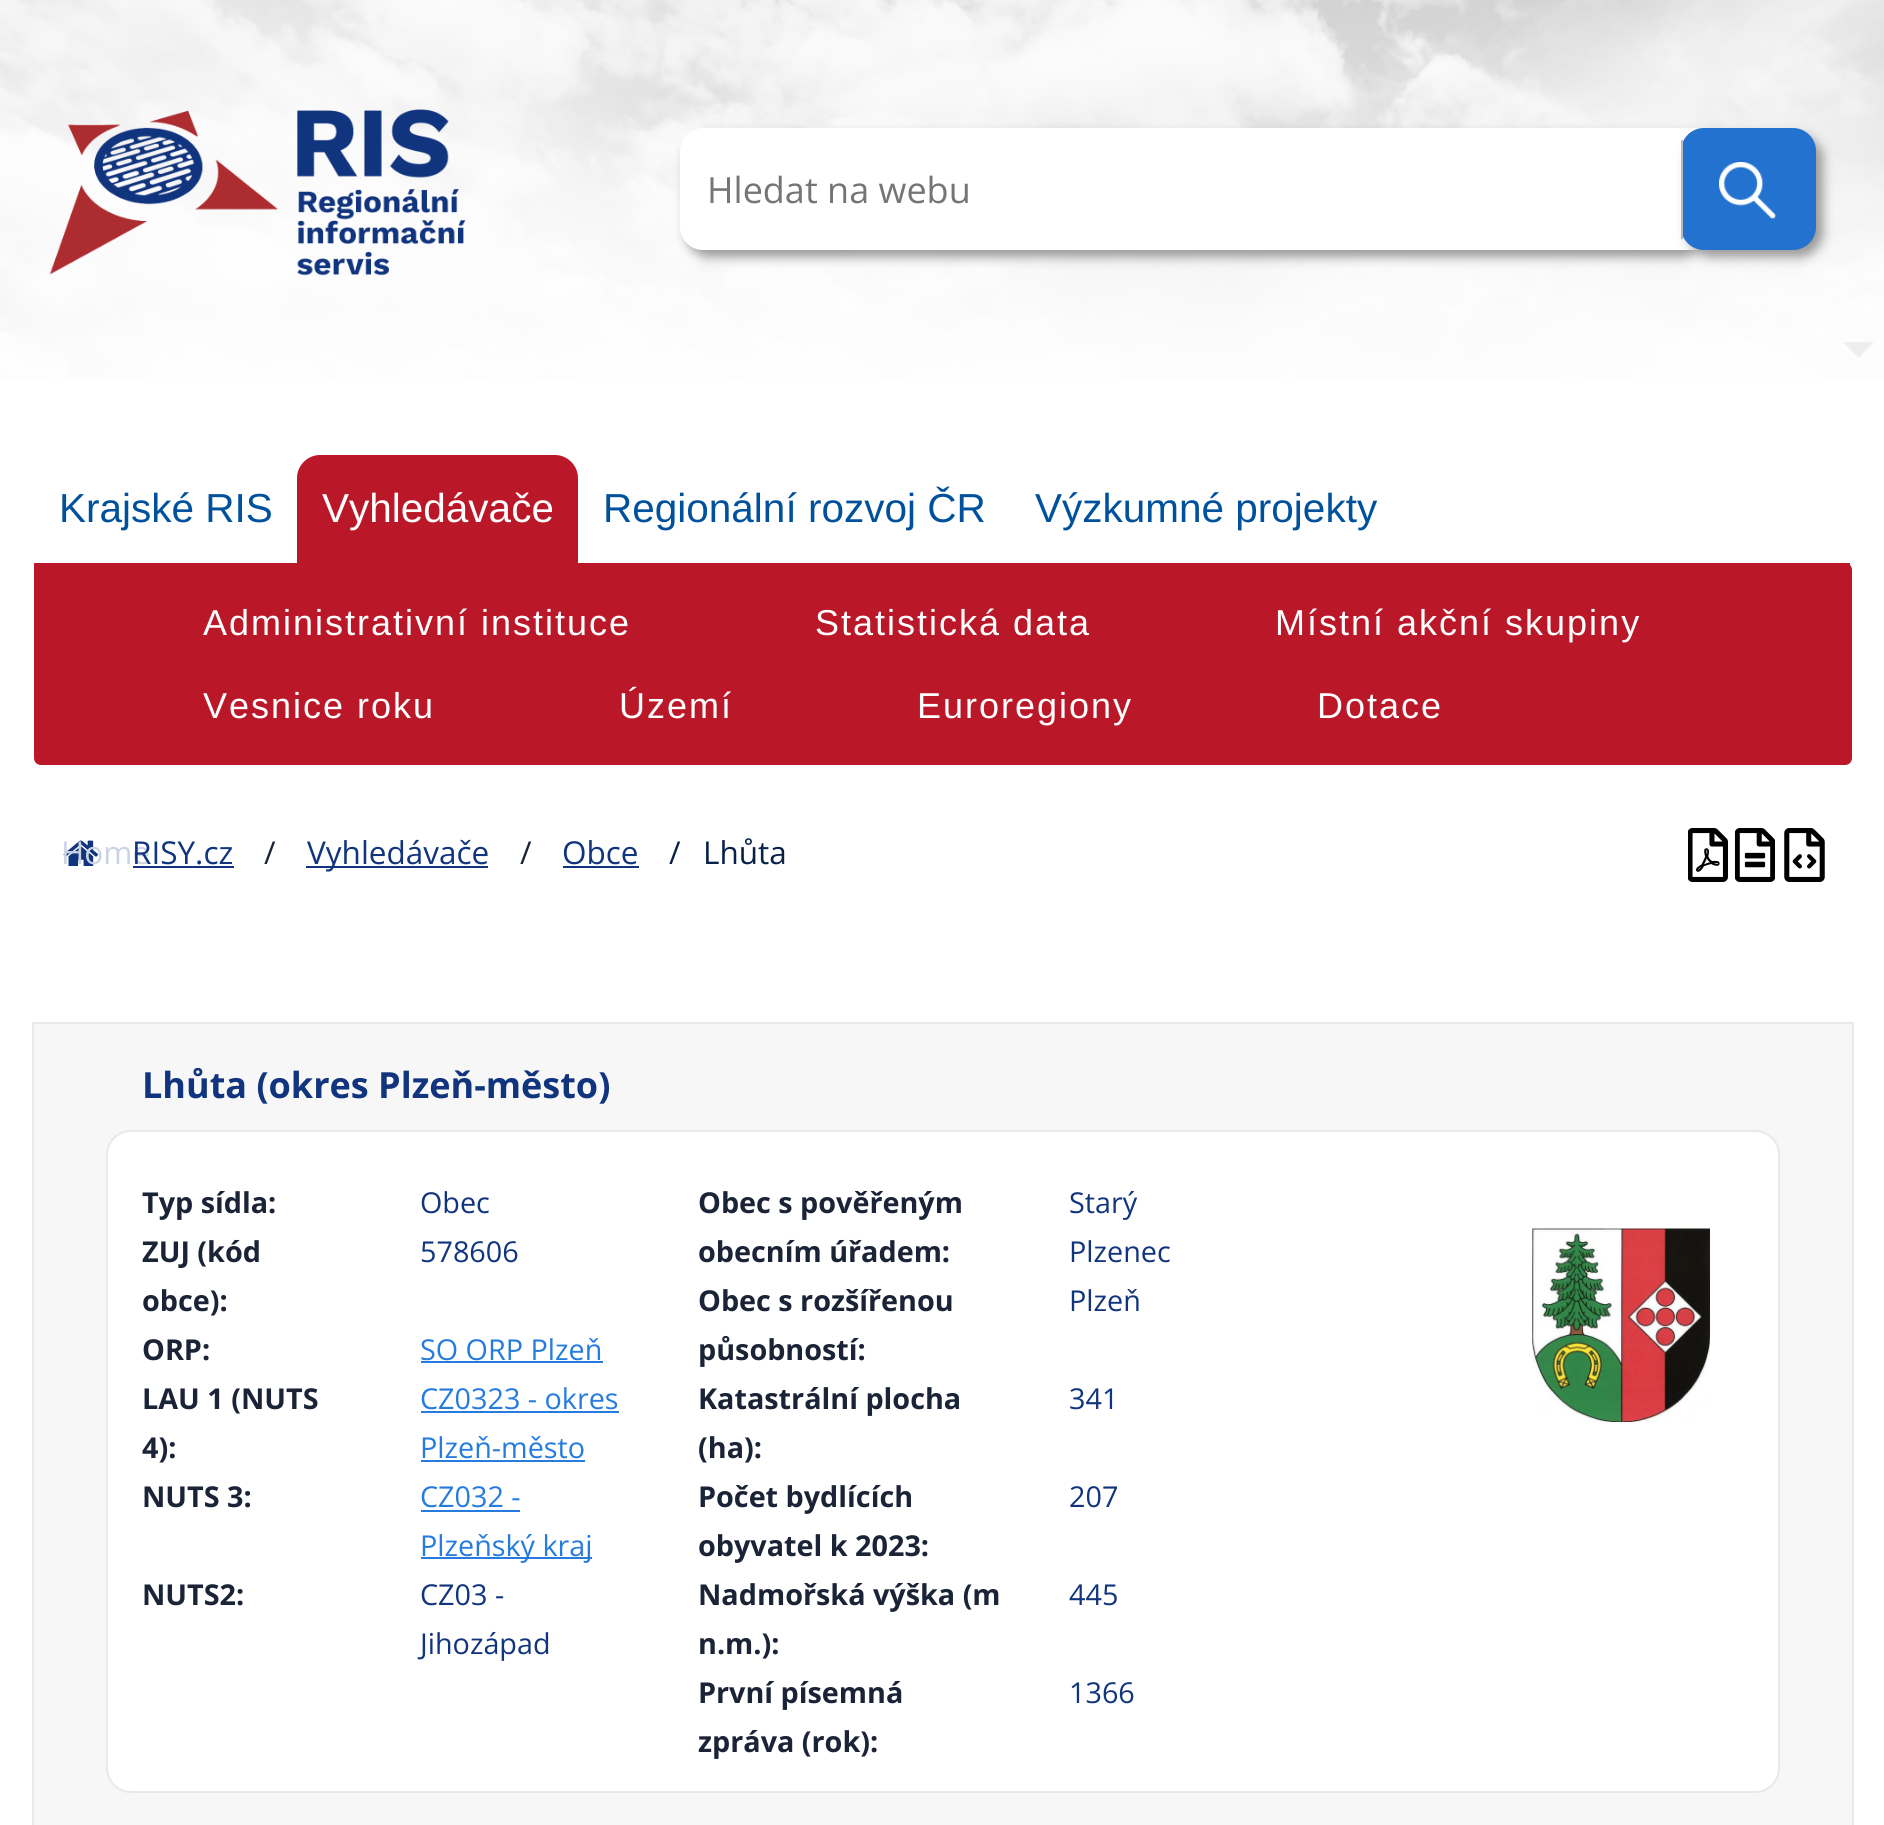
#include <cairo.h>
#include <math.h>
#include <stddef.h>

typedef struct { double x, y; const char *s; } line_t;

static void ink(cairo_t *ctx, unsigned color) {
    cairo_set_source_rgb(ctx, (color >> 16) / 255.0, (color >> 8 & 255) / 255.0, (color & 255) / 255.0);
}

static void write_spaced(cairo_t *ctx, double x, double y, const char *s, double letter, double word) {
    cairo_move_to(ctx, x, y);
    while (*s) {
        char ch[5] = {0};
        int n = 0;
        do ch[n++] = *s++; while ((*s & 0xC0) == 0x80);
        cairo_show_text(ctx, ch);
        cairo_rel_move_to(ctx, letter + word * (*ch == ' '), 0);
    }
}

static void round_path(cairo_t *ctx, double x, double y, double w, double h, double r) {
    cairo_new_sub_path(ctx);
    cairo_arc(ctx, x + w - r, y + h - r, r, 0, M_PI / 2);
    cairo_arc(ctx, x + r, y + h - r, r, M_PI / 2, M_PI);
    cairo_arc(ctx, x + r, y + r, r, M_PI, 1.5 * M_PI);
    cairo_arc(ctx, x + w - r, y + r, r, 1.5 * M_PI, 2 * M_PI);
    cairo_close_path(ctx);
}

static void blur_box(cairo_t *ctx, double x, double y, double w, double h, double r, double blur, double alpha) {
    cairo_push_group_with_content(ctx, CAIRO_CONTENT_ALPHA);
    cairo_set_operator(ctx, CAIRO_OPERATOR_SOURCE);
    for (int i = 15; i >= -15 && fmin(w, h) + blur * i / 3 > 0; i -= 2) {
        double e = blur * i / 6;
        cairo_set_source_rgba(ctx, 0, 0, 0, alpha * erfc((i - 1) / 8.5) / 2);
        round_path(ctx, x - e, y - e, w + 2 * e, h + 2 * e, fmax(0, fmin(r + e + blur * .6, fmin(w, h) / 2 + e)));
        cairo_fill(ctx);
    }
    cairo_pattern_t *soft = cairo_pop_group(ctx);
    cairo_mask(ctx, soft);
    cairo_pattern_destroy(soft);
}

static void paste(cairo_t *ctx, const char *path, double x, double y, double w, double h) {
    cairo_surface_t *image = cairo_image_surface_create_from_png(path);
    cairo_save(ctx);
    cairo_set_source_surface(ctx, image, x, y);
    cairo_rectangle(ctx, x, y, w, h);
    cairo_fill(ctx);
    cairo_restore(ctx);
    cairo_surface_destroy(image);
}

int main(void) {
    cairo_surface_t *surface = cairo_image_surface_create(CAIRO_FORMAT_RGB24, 1884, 1825);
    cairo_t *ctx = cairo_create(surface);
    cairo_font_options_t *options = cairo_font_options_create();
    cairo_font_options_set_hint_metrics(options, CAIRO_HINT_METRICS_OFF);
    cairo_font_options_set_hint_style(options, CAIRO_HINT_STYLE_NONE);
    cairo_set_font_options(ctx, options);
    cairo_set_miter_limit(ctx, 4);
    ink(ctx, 0xFFFFFF);
    cairo_paint(ctx);
    paste(ctx, "media/1.png", 0, 0, 1884, 379);
    paste(ctx, "media/2.png", 49, 109, 417, 167);
    ink(ctx, 0x999999);
    blur_box(ctx, 686, 135, 1020, 122, 23, 5.5, 1);
    ink(ctx, 0xFFFFFF);
    cairo_new_path(ctx);
    cairo_move_to(ctx, 703, 128);
    cairo_line_to(ctx, 1699, 128);
    cairo_line_to(ctx, 1699, 250);
    cairo_line_to(ctx, 703, 250);
    cairo_curve_to(ctx, 690.5, 250, 680, 239.5, 680, 227);
    cairo_line_to(ctx, 680, 151);
    cairo_curve_to(ctx, 680, 138.5, 690.5, 128, 703, 128);
    cairo_close_path(ctx);
    cairo_fill(ctx);
    cairo_select_font_face(ctx, "Open Sans", CAIRO_FONT_SLANT_NORMAL, CAIRO_FONT_WEIGHT_NORMAL);
    cairo_set_font_size(ctx, 36);
    ink(ctx, 0x757575);
    cairo_move_to(ctx, 707, 203);
    cairo_show_text(ctx, "Hledat na webu");
    ink(ctx, 0x999999);
    blur_box(ctx, 1688, 135, 135, 122, 23, 5.5, 1);
    ink(ctx, 0x2372CF);
    round_path(ctx, 1681, 128, 135, 122, 23);
    cairo_fill(ctx);
    ink(ctx, 0xB9B9B9);
    cairo_rectangle(ctx, 1681, 140, 2, 99);
    cairo_fill(ctx);
    paste(ctx, "media/3.png", 1719, 162, 57, 57);
    ink(ctx, 0xEEEEEE);
    cairo_new_path(ctx);
    cairo_move_to(ctx, 1843, 342);
    cairo_line_to(ctx, 1874, 342);
    cairo_line_to(ctx, 1858.5, 358);
    cairo_close_path(ctx);
    cairo_fill(ctx);
    cairo_select_font_face(ctx, "Liberation Sans", CAIRO_FONT_SLANT_NORMAL, CAIRO_FONT_WEIGHT_NORMAL);
    cairo_set_font_size(ctx, 40.5);
    ink(ctx, 0x00519D);
    cairo_move_to(ctx, 59, 522);
    cairo_show_text(ctx, "Krajské RIS");
    ink(ctx, 0xBA1828);
    cairo_new_path(ctx);
    cairo_move_to(ctx, 320, 455);
    cairo_line_to(ctx, 555, 455);
    cairo_curve_to(ctx, 567.5, 455, 578, 465.5, 578, 478);
    cairo_line_to(ctx, 578, 563);
    cairo_line_to(ctx, 297, 563);
    cairo_line_to(ctx, 297, 478);
    cairo_curve_to(ctx, 297, 465.5, 307.5, 455, 320, 455);
    cairo_close_path(ctx);
    cairo_fill(ctx);
    ink(ctx, 0xFFFFFF);
    cairo_move_to(ctx, 322, 522);
    cairo_show_text(ctx, "Vyhledávače");
    ink(ctx, 0x00519D);
    cairo_move_to(ctx, 603, 522);
    cairo_show_text(ctx, "Regionální rozvoj ČR");
    cairo_move_to(ctx, 1035, 522);
    cairo_show_text(ctx, "Výzkumné projekty");
    ink(ctx, 0xBA1828);
    cairo_new_path(ctx);
    cairo_move_to(ctx, 34, 563);
    cairo_line_to(ctx, 1845, 563);
    cairo_curve_to(ctx, 1849, 563, 1852, 566, 1852, 570);
    cairo_line_to(ctx, 1852, 758);
    cairo_curve_to(ctx, 1852, 762, 1849, 765, 1845, 765);
    cairo_line_to(ctx, 41, 765);
    cairo_curve_to(ctx, 37, 765, 34, 762, 34, 758);
    cairo_close_path(ctx);
    cairo_fill(ctx);
    cairo_rectangle(ctx, 1845, 563, 5, 2);
    cairo_fill(ctx);
    cairo_set_font_size(ctx, 36);
    ink(ctx, 0xFFFFFF);
    {
        static const line_t items[] = {
            {203, 635, "Administrativní instituce"},
            {815, 635, "Statistická data"},
            {1275, 635, "Místní akční skupiny"},
            {203, 718, "Vesnice roku"},
            {619, 718, "Území"},
            {917, 718, "Euroregiony"},
            {1317, 718, "Dotace"},
        };
        for (size_t i = 0; i < sizeof items / sizeof *items; i++) {
            write_spaced(ctx, items[i].x, items[i].y, items[i].s, 2, 0);
        }
    }
    paste(ctx, "media/4.png", 63, 840, 36, 26);
    cairo_select_font_face(ctx, "Open Sans", CAIRO_FONT_SLANT_NORMAL, CAIRO_FONT_WEIGHT_NORMAL);
    cairo_set_font_size(ctx, 31.5);
    ink(ctx, 0xCBD3E3);
    cairo_move_to(ctx, 61, 864);
    cairo_show_text(ctx, "Home");
    ink(ctx, 0x11347E);
    cairo_move_to(ctx, 132, 864);
    cairo_show_text(ctx, "RISY.cz");
    cairo_rectangle(ctx, 133, 866, 101, 2);
    cairo_fill(ctx);
    ink(ctx, 0x1B2437);
    cairo_move_to(ctx, 264, 864);
    cairo_show_text(ctx, "/");
    ink(ctx, 0x11347E);
    cairo_rectangle(ctx, 306, 866, 182, 2);
    cairo_fill(ctx);
    cairo_move_to(ctx, 307, 864);
    cairo_show_text(ctx, "Vyhledávače");
    ink(ctx, 0x1B2437);
    cairo_move_to(ctx, 520, 864);
    cairo_show_text(ctx, "/");
    ink(ctx, 0x11347E);
    cairo_move_to(ctx, 562, 864);
    cairo_show_text(ctx, "Obce");
    cairo_rectangle(ctx, 563, 866, 76, 2);
    cairo_fill(ctx);
    ink(ctx, 0x072148);
    cairo_move_to(ctx, 669, 864);
    cairo_show_text(ctx, "/");
    cairo_move_to(ctx, 703, 864);
    cairo_show_text(ctx, "Lhůta");
    paste(ctx, "media/5.png", 1688, 828, 40, 54);
    paste(ctx, "media/6.png", 1735, 828, 40, 54);
    paste(ctx, "media/7.png", 1784, 828, 41, 54);
    ink(ctx, 0xF7F7F7);
    cairo_rectangle(ctx, 33, 1023, 1820, 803);
    cairo_fill_preserve(ctx);
    ink(ctx, 0xEAE8E8);
    cairo_stroke(ctx);
    cairo_select_font_face(ctx, "Open Sans", CAIRO_FONT_SLANT_NORMAL, CAIRO_FONT_WEIGHT_BOLD);
    cairo_set_font_size(ctx, 36);
    ink(ctx, 0x11347E);
    cairo_move_to(ctx, 142, 1098);
    cairo_show_text(ctx, "Lhůta (okres Plzeň-město)");
    ink(ctx, 0xFFFFFF);
    round_path(ctx, 107, 1131, 1672, 661, 24);
    cairo_fill_preserve(ctx);
    ink(ctx, 0xEAE8E8);
    cairo_stroke(ctx);
    cairo_set_font_size(ctx, 28.75);
    ink(ctx, 0x1B2437);
    cairo_move_to(ctx, 142, 1213);
    cairo_show_text(ctx, "Typ sídla:");
    cairo_select_font_face(ctx, "Open Sans", CAIRO_FONT_SLANT_NORMAL, CAIRO_FONT_WEIGHT_NORMAL);
    ink(ctx, 0x11347E);
    cairo_move_to(ctx, 420, 1213);
    cairo_show_text(ctx, "Obec");
    cairo_select_font_face(ctx, "Open Sans", CAIRO_FONT_SLANT_NORMAL, CAIRO_FONT_WEIGHT_BOLD);
    ink(ctx, 0x1B2437);
    cairo_move_to(ctx, 142, 1262);
    cairo_show_text(ctx, "ZUJ (kód");
    cairo_move_to(ctx, 142, 1311);
    cairo_show_text(ctx, "obce):");
    cairo_select_font_face(ctx, "Open Sans", CAIRO_FONT_SLANT_NORMAL, CAIRO_FONT_WEIGHT_NORMAL);
    ink(ctx, 0x11347E);
    cairo_move_to(ctx, 420, 1262);
    cairo_show_text(ctx, "578606");
    cairo_select_font_face(ctx, "Open Sans", CAIRO_FONT_SLANT_NORMAL, CAIRO_FONT_WEIGHT_BOLD);
    ink(ctx, 0x1B2437);
    cairo_move_to(ctx, 142, 1360);
    cairo_show_text(ctx, "ORP:");
    cairo_select_font_face(ctx, "Open Sans", CAIRO_FONT_SLANT_NORMAL, CAIRO_FONT_WEIGHT_NORMAL);
    ink(ctx, 0x257BDE);
    cairo_move_to(ctx, 420, 1360);
    cairo_show_text(ctx, "SO ORP Plzeň");
    cairo_rectangle(ctx, 421, 1361, 182, 2);
    cairo_fill(ctx);
    cairo_select_font_face(ctx, "Open Sans", CAIRO_FONT_SLANT_NORMAL, CAIRO_FONT_WEIGHT_BOLD);
    ink(ctx, 0x1B2437);
    cairo_move_to(ctx, 142, 1409);
    cairo_show_text(ctx, "LAU 1 (NUTS");
    cairo_move_to(ctx, 142, 1458);
    cairo_show_text(ctx, "4):");
    cairo_select_font_face(ctx, "Open Sans", CAIRO_FONT_SLANT_NORMAL, CAIRO_FONT_WEIGHT_NORMAL);
    ink(ctx, 0x257BDE);
    cairo_move_to(ctx, 420, 1409);
    cairo_show_text(ctx, "CZ0323 - okres");
    cairo_rectangle(ctx, 421, 1411, 198, 2);
    cairo_fill(ctx);
    cairo_move_to(ctx, 420, 1458);
    cairo_show_text(ctx, "Plzeň-město");
    cairo_rectangle(ctx, 421, 1460, 164, 2);
    cairo_fill(ctx);
    cairo_select_font_face(ctx, "Open Sans", CAIRO_FONT_SLANT_NORMAL, CAIRO_FONT_WEIGHT_BOLD);
    ink(ctx, 0x1B2437);
    cairo_move_to(ctx, 142, 1507);
    cairo_show_text(ctx, "NUTS 3:");
    cairo_select_font_face(ctx, "Open Sans", CAIRO_FONT_SLANT_NORMAL, CAIRO_FONT_WEIGHT_NORMAL);
    ink(ctx, 0x257BDE);
    cairo_move_to(ctx, 420, 1507);
    cairo_show_text(ctx, "CZ032 -");
    cairo_rectangle(ctx, 421, 1510, 99, 2);
    cairo_fill(ctx);
    cairo_rectangle(ctx, 421, 1557, 171, 2);
    cairo_fill(ctx);
    cairo_move_to(ctx, 420, 1556);
    cairo_show_text(ctx, "Plzeňský kraj");
    cairo_select_font_face(ctx, "Open Sans", CAIRO_FONT_SLANT_NORMAL, CAIRO_FONT_WEIGHT_BOLD);
    ink(ctx, 0x1B2437);
    cairo_move_to(ctx, 142, 1605);
    cairo_show_text(ctx, "NUTS2:");
    cairo_select_font_face(ctx, "Open Sans", CAIRO_FONT_SLANT_NORMAL, CAIRO_FONT_WEIGHT_NORMAL);
    ink(ctx, 0x11347E);
    cairo_move_to(ctx, 420, 1605);
    cairo_show_text(ctx, "CZ03 -");
    cairo_move_to(ctx, 420, 1654);
    cairo_show_text(ctx, "Jihozápad");
    cairo_select_font_face(ctx, "Open Sans", CAIRO_FONT_SLANT_NORMAL, CAIRO_FONT_WEIGHT_BOLD);
    ink(ctx, 0x1B2437);
    cairo_move_to(ctx, 698, 1213);
    cairo_show_text(ctx, "Obec s pověřeným");
    cairo_move_to(ctx, 698, 1262);
    cairo_show_text(ctx, "obecním úřadem:");
    cairo_select_font_face(ctx, "Open Sans", CAIRO_FONT_SLANT_NORMAL, CAIRO_FONT_WEIGHT_NORMAL);
    ink(ctx, 0x11347E);
    cairo_move_to(ctx, 1069, 1213);
    cairo_show_text(ctx, "Starý");
    cairo_move_to(ctx, 1069, 1262);
    cairo_show_text(ctx, "Plzenec");
    cairo_select_font_face(ctx, "Open Sans", CAIRO_FONT_SLANT_NORMAL, CAIRO_FONT_WEIGHT_BOLD);
    ink(ctx, 0x1B2437);
    cairo_move_to(ctx, 698, 1311);
    cairo_show_text(ctx, "Obec s rozšířenou");
    cairo_move_to(ctx, 698, 1360);
    cairo_show_text(ctx, "působností:");
    cairo_select_font_face(ctx, "Open Sans", CAIRO_FONT_SLANT_NORMAL, CAIRO_FONT_WEIGHT_NORMAL);
    ink(ctx, 0x11347E);
    cairo_move_to(ctx, 1069, 1311);
    cairo_show_text(ctx, "Plzeň");
    cairo_select_font_face(ctx, "Open Sans", CAIRO_FONT_SLANT_NORMAL, CAIRO_FONT_WEIGHT_BOLD);
    ink(ctx, 0x1B2437);
    cairo_move_to(ctx, 698, 1409);
    cairo_show_text(ctx, "Katastrální plocha");
    cairo_move_to(ctx, 698, 1458);
    cairo_show_text(ctx, "(ha):");
    cairo_select_font_face(ctx, "Open Sans", CAIRO_FONT_SLANT_NORMAL, CAIRO_FONT_WEIGHT_NORMAL);
    ink(ctx, 0x11347E);
    cairo_move_to(ctx, 1069, 1409);
    cairo_show_text(ctx, "341");
    cairo_select_font_face(ctx, "Open Sans", CAIRO_FONT_SLANT_NORMAL, CAIRO_FONT_WEIGHT_BOLD);
    ink(ctx, 0x1B2437);
    cairo_move_to(ctx, 698, 1507);
    cairo_show_text(ctx, "Počet bydlících");
    cairo_move_to(ctx, 698, 1556);
    cairo_show_text(ctx, "obyvatel k 2023:");
    cairo_select_font_face(ctx, "Open Sans", CAIRO_FONT_SLANT_NORMAL, CAIRO_FONT_WEIGHT_NORMAL);
    ink(ctx, 0x11347E);
    cairo_move_to(ctx, 1069, 1507);
    cairo_show_text(ctx, "207");
    cairo_select_font_face(ctx, "Open Sans", CAIRO_FONT_SLANT_NORMAL, CAIRO_FONT_WEIGHT_BOLD);
    ink(ctx, 0x1B2437);
    cairo_move_to(ctx, 698, 1605);
    cairo_show_text(ctx, "Nadmořská výška (m");
    cairo_move_to(ctx, 698, 1654);
    cairo_show_text(ctx, "n.m.):");
    cairo_select_font_face(ctx, "Open Sans", CAIRO_FONT_SLANT_NORMAL, CAIRO_FONT_WEIGHT_NORMAL);
    ink(ctx, 0x11347E);
    cairo_move_to(ctx, 1069, 1605);
    cairo_show_text(ctx, "445");
    cairo_select_font_face(ctx, "Open Sans", CAIRO_FONT_SLANT_NORMAL, CAIRO_FONT_WEIGHT_BOLD);
    ink(ctx, 0x1B2437);
    cairo_move_to(ctx, 698, 1703);
    cairo_show_text(ctx, "První písemná");
    cairo_move_to(ctx, 698, 1752);
    cairo_show_text(ctx, "zpráva (rok):");
    cairo_select_font_face(ctx, "Open Sans", CAIRO_FONT_SLANT_NORMAL, CAIRO_FONT_WEIGHT_NORMAL);
    ink(ctx, 0x11347E);
    cairo_move_to(ctx, 1069, 1703);
    cairo_show_text(ctx, "1366");
    paste(ctx, "media/8.png", 1532, 1228, 178, 194);
    cairo_surface_write_to_png(surface, "image.png");
    cairo_font_options_destroy(options);
    cairo_destroy(ctx);
    cairo_surface_destroy(surface);
    return 0;
}
